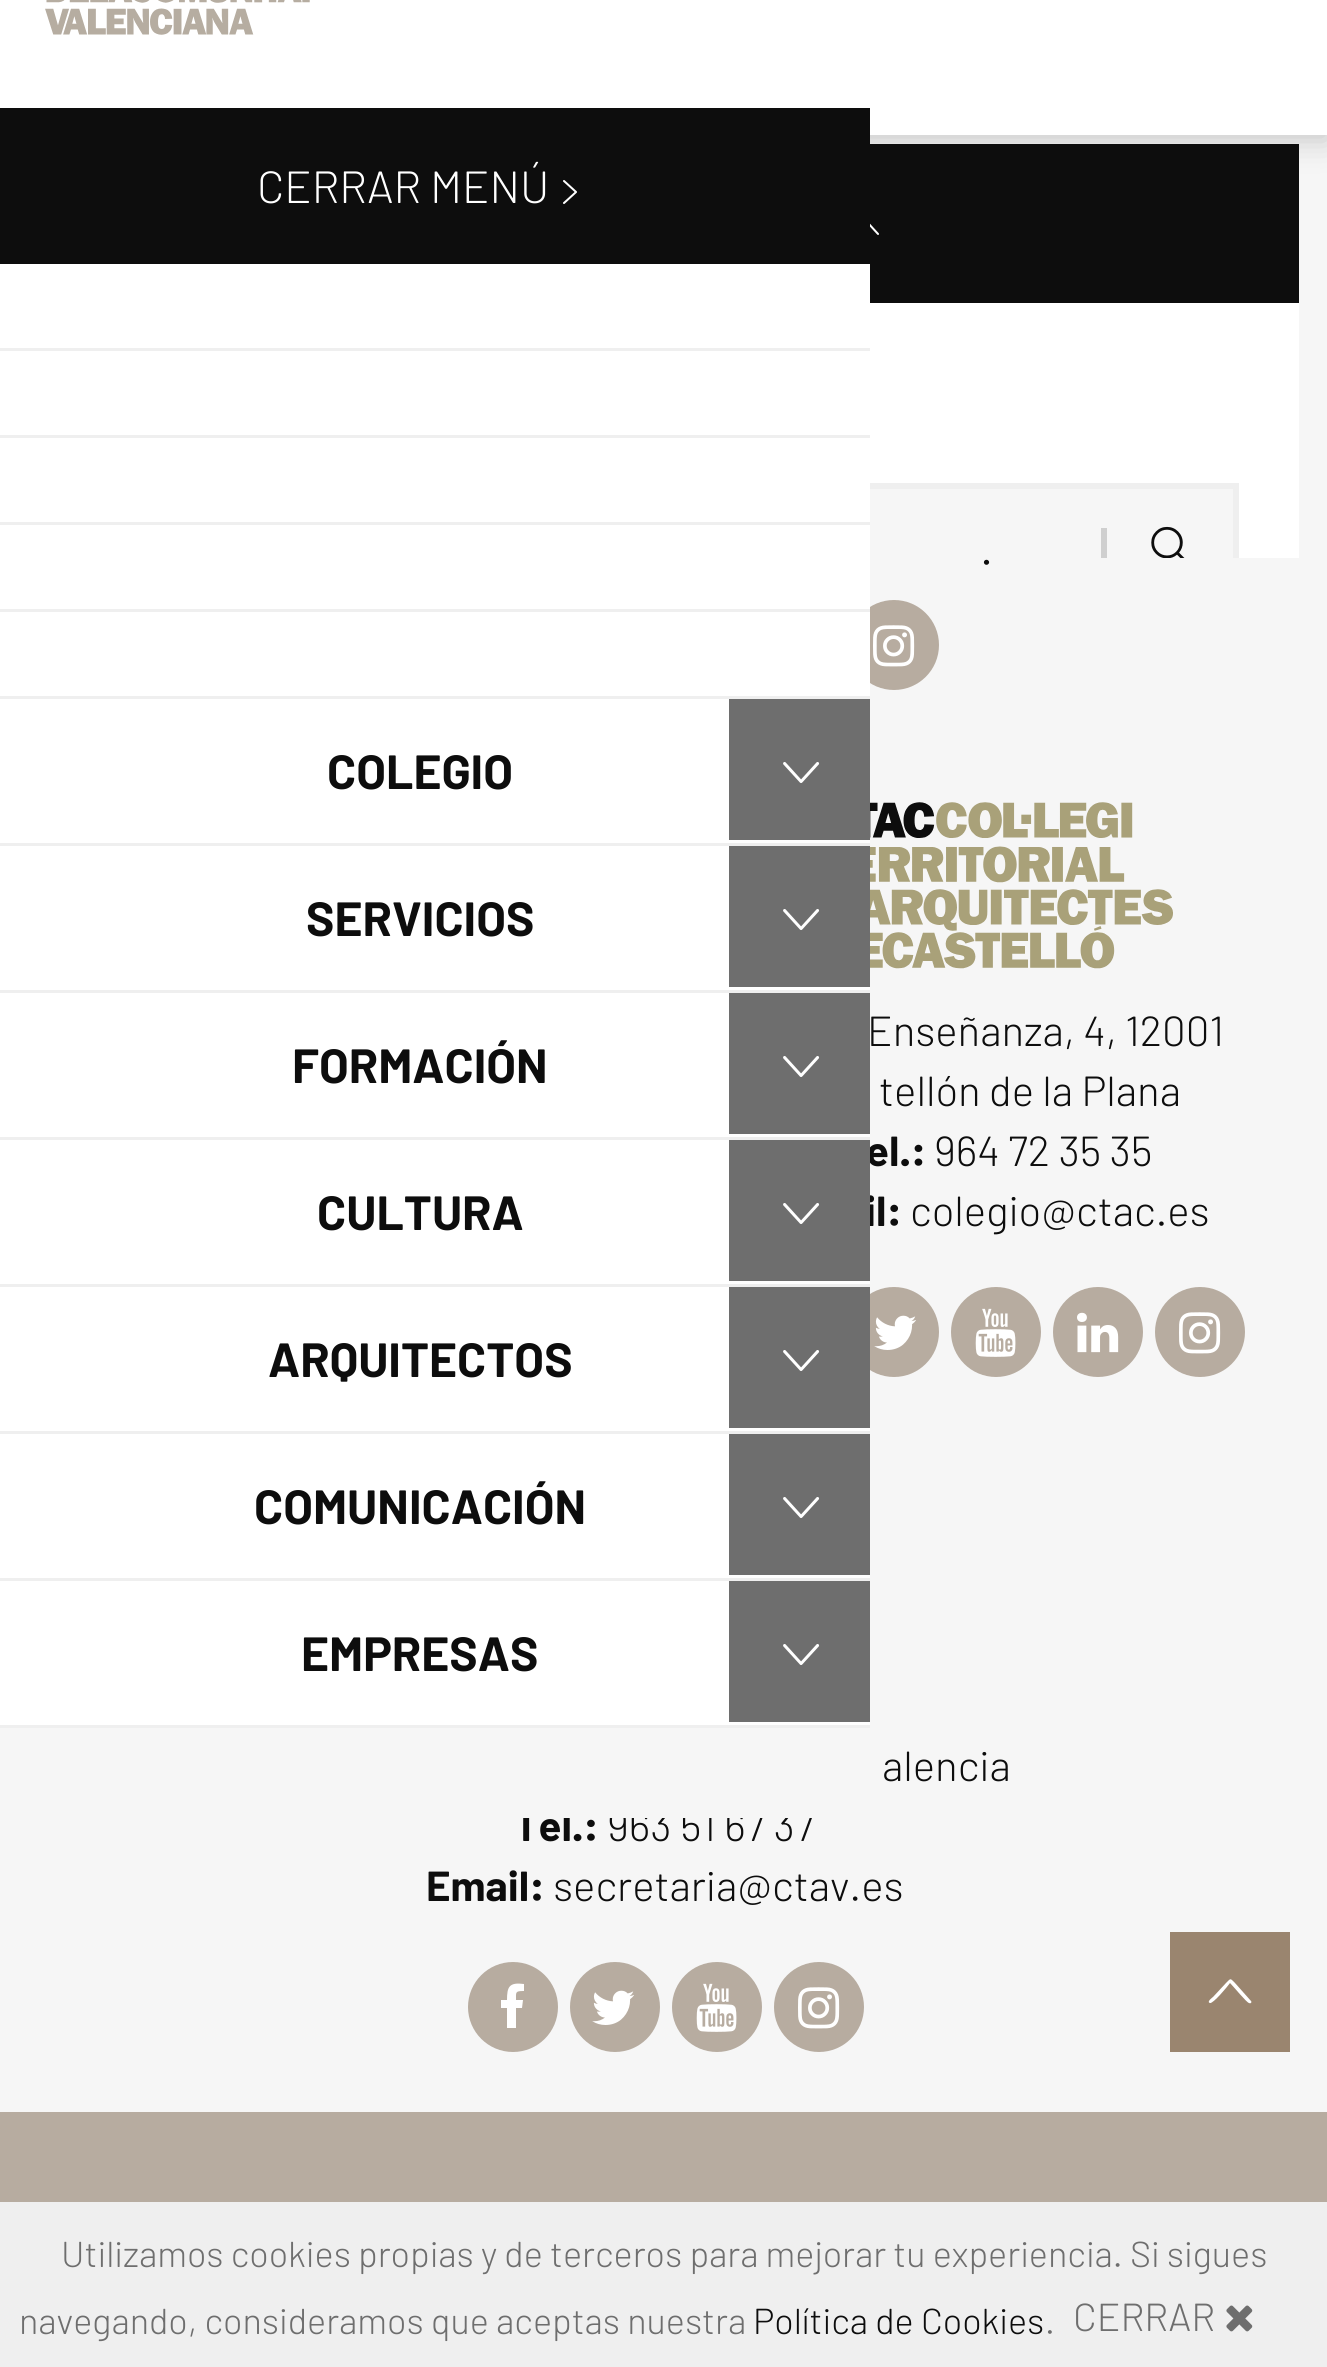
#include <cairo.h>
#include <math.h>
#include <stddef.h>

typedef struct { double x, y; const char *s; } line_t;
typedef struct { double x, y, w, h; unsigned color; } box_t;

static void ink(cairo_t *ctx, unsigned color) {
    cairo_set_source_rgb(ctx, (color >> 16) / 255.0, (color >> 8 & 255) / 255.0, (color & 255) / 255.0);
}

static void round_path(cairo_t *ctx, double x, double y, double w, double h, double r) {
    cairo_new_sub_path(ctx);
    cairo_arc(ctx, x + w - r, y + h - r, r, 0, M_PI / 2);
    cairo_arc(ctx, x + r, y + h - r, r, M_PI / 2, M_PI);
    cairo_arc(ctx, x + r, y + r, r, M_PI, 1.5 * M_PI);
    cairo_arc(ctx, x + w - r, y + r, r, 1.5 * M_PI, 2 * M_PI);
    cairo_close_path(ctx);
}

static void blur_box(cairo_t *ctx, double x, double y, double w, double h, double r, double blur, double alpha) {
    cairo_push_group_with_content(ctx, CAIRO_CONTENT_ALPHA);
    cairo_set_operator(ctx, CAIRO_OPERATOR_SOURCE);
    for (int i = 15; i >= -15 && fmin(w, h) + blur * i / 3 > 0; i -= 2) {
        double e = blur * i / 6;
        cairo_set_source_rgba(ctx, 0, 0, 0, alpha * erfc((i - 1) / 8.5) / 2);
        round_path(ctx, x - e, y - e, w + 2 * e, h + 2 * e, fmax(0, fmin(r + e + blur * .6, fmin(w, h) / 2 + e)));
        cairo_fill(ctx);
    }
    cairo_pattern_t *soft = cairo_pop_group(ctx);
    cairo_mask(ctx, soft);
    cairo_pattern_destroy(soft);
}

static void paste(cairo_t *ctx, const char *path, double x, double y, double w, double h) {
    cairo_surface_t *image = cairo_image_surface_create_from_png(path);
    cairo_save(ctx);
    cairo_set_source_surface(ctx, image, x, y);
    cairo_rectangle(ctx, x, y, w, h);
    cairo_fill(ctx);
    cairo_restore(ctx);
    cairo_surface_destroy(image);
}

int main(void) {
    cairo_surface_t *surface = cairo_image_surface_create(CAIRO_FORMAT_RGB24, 1327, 2367);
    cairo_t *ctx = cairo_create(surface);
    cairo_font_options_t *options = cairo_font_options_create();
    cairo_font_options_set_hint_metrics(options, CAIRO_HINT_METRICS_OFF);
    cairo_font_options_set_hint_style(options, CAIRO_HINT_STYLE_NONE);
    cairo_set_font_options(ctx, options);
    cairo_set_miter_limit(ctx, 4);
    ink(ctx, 0xF6F6F6);
    cairo_paint(ctx);
    ink(ctx, 0x0D0D0D);
    blur_box(ctx, 0, -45, 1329, 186, 0, 15, 0.2);
    ink(ctx, 0xFFFFFF);
    cairo_rectangle(ctx, 0, 0, 1327, 135);
    cairo_fill(ctx);
    paste(ctx, "media/1.png", 45, 0, 265, 35);
    cairo_rectangle(ctx, 870, 303, 429, 255);
    cairo_fill(ctx);
    ink(ctx, 0x0D0D0D);
    cairo_rectangle(ctx, 870, 144, 429, 159);
    cairo_fill(ctx);
    paste(ctx, "media/2.png", 870, 223, 9, 12);
    ink(ctx, 0xF6F6F6);
    cairo_rectangle(ctx, 870, 489, 363, 69);
    cairo_fill(ctx);
    ink(ctx, 0xB7ACA0);
    cairo_arc(ctx, 894, 645, 45, 0, 2 * M_PI);
    cairo_fill(ctx);
    cairo_save(ctx);
    cairo_rectangle(ctx, 30, 144, 1269, 414);
    cairo_clip(ctx);
    cairo_rectangle(ctx, 93, 486, 1143, 129);
    ink(ctx, 0xEFEFEF);
    cairo_set_line_width(ctx, 6);
    cairo_stroke(ctx);
    cairo_restore(ctx);
    ink(ctx, 0xCFCFCF);
    cairo_rectangle(ctx, 1101, 528, 6, 30);
    cairo_fill(ctx);
    paste(ctx, "media/3.png", 1151, 526, 34, 32);
    cairo_select_font_face(ctx, "Barlow", CAIRO_FONT_SLANT_NORMAL, CAIRO_FONT_WEIGHT_BOLD);
    cairo_set_font_size(ctx, 42);
    ink(ctx, 0x0D0D0D);
    cairo_move_to(ctx, 866, 1166);
    cairo_show_text(ctx, "el.:");
    cairo_move_to(ctx, 865, 1226);
    cairo_show_text(ctx, "il:");
    ink(ctx, 0xB7ACA0);
    cairo_new_path(ctx);
    cairo_arc(ctx, 894, 1332, 45, 0, 2 * M_PI);
    cairo_fill(ctx);
    ink(ctx, 0xFFFFFF);
    cairo_rectangle(ctx, 0, 264, 870, 1461);
    cairo_fill(ctx);
    ink(ctx, 0x0D0D0D);
    cairo_rectangle(ctx, 0, 108, 870, 156);
    cairo_fill(ctx);
    cairo_select_font_face(ctx, "Barlow Light", CAIRO_FONT_SLANT_NORMAL, CAIRO_FONT_WEIGHT_NORMAL);
    cairo_set_font_size(ctx, 45);
    ink(ctx, 0xFFFFFF);
    cairo_move_to(ctx, 257, 203);
    cairo_show_text(ctx, "CERRAR MENÚ");
    paste(ctx, "media/4.png", 563, 180, 14, 24);
    {
        static const box_t items[] = {
            {0, 348, 870, 3, 0xEFEFEF},
            {0, 435, 870, 3, 0xEFEFEF},
            {0, 522, 870, 3, 0xEFEFEF},
            {0, 609, 870, 3, 0xEFEFEF},
            {0, 696, 870, 3, 0xEFEFEF},
            {0, 843, 870, 3, 0xEFEFEF},
        };
        for (size_t i = 0; i < sizeof items / sizeof *items; i++) {
            ink(ctx, items[i].color);
            cairo_rectangle(ctx, items[i].x, items[i].y, items[i].w, items[i].h);
            cairo_fill(ctx);
        }
    }
    cairo_select_font_face(ctx, "Barlow", CAIRO_FONT_SLANT_NORMAL, CAIRO_FONT_WEIGHT_BOLD);
    cairo_set_font_size(ctx, 48);
    ink(ctx, 0x0D0D0D);
    cairo_move_to(ctx, 327, 789);
    cairo_show_text(ctx, "COLEGIO");
    ink(ctx, 0x6E6E6E);
    cairo_rectangle(ctx, 729, 699, 141, 141);
    cairo_fill(ctx);
    paste(ctx, "media/5.png", 783, 762, 37, 21);
    ink(ctx, 0xEFEFEF);
    cairo_rectangle(ctx, 0, 990, 870, 3);
    cairo_fill(ctx);
    ink(ctx, 0x0D0D0D);
    cairo_move_to(ctx, 306, 936);
    cairo_show_text(ctx, "SERVICIOS");
    ink(ctx, 0x6E6E6E);
    cairo_rectangle(ctx, 729, 846, 141, 141);
    cairo_fill(ctx);
    paste(ctx, "media/5.png", 783, 909, 37, 21);
    ink(ctx, 0xEFEFEF);
    cairo_rectangle(ctx, 0, 1137, 870, 3);
    cairo_fill(ctx);
    ink(ctx, 0x0D0D0D);
    cairo_move_to(ctx, 292, 1083);
    cairo_show_text(ctx, "FORMACIÓN");
    ink(ctx, 0x6E6E6E);
    cairo_rectangle(ctx, 729, 993, 141, 141);
    cairo_fill(ctx);
    paste(ctx, "media/5.png", 783, 1056, 37, 21);
    ink(ctx, 0xEFEFEF);
    cairo_rectangle(ctx, 0, 1284, 870, 3);
    cairo_fill(ctx);
    ink(ctx, 0x0D0D0D);
    cairo_move_to(ctx, 317, 1230);
    cairo_show_text(ctx, "CULTURA");
    ink(ctx, 0x6E6E6E);
    cairo_rectangle(ctx, 729, 1140, 141, 141);
    cairo_fill(ctx);
    paste(ctx, "media/5.png", 783, 1203, 37, 21);
    ink(ctx, 0xEFEFEF);
    cairo_rectangle(ctx, 0, 1431, 870, 3);
    cairo_fill(ctx);
    ink(ctx, 0x0D0D0D);
    cairo_move_to(ctx, 268, 1377);
    cairo_show_text(ctx, "ARQUITECTOS");
    ink(ctx, 0x6E6E6E);
    cairo_rectangle(ctx, 729, 1287, 141, 141);
    cairo_fill(ctx);
    paste(ctx, "media/5.png", 783, 1350, 37, 21);
    ink(ctx, 0xEFEFEF);
    cairo_rectangle(ctx, 0, 1578, 870, 3);
    cairo_fill(ctx);
    ink(ctx, 0x0D0D0D);
    cairo_move_to(ctx, 254, 1524);
    cairo_show_text(ctx, "COMUNICACIÓN");
    ink(ctx, 0x6E6E6E);
    cairo_rectangle(ctx, 729, 1434, 141, 141);
    cairo_fill(ctx);
    paste(ctx, "media/5.png", 783, 1497, 37, 21);
    ink(ctx, 0xEFEFEF);
    cairo_rectangle(ctx, 0, 1725, 870, 3);
    cairo_fill(ctx);
    ink(ctx, 0x0D0D0D);
    cairo_move_to(ctx, 301, 1671);
    cairo_show_text(ctx, "EMPRESAS");
    ink(ctx, 0x6E6E6E);
    cairo_rectangle(ctx, 729, 1581, 141, 141);
    cairo_fill(ctx);
    paste(ctx, "media/5.png", 783, 1644, 37, 21);
    cairo_set_font_size(ctx, 42);
    ink(ctx, 0x0D0D0D);
    cairo_move_to(ctx, 514, 1841);
    cairo_show_text(ctx, "Tel.:");
    cairo_select_font_face(ctx, "Barlow Light", CAIRO_FONT_SLANT_NORMAL, CAIRO_FONT_WEIGHT_NORMAL);
    cairo_move_to(ctx, 607, 1841);
    cairo_show_text(ctx, "963 51 67 37");
    ink(ctx, 0xF6F6F6);
    cairo_rectangle(ctx, 515, 1811, 299, 7);
    cairo_fill(ctx);
    cairo_set_font_size(ctx, 48);
    ink(ctx, 0x0D0D0D);
    cairo_move_to(ctx, 980, 565);
    cairo_show_text(ctx, ".");
    paste(ctx, "media/6.png", 873, 625, 42, 42);
    paste(ctx, "media/7.png", 870, 802, 303, 167);
    cairo_set_font_size(ctx, 42);
    {
        static const line_t items[] = {
            {867, 1046, "Enseñanza, 4, 12001"},
            {879, 1106, "tellón de la Plana"},
            {934, 1166, "964 72 35 35"},
            {910, 1226, "colegio@ctac.es"},
        };
        for (size_t i = 0; i < sizeof items / sizeof *items; i++) {
            cairo_move_to(ctx, items[i].x, items[i].y);
            cairo_show_text(ctx, items[i].s);
        }
    }
    paste(ctx, "media/8.png", 874, 1315, 42, 35);
    ink(ctx, 0xB7ACA0);
    cairo_arc(ctx, 996, 1332, 45, 0, 2 * M_PI);
    cairo_fill(ctx);
    paste(ctx, "media/9.png", 975, 1308, 41, 49);
    cairo_arc(ctx, 1098, 1332, 45, 0, 2 * M_PI);
    cairo_fill(ctx);
    paste(ctx, "media/10.png", 1077, 1312, 42, 41);
    cairo_arc(ctx, 1200, 1332, 45, 0, 2 * M_PI);
    cairo_fill(ctx);
    paste(ctx, "media/6.png", 1179, 1312, 42, 42);
    ink(ctx, 0x0D0D0D);
    cairo_move_to(ctx, 882, 1781);
    cairo_show_text(ctx, "alencia");
    cairo_select_font_face(ctx, "Barlow", CAIRO_FONT_SLANT_NORMAL, CAIRO_FONT_WEIGHT_BOLD);
    cairo_move_to(ctx, 426, 1901);
    cairo_show_text(ctx, "Email:");
    cairo_select_font_face(ctx, "Barlow Light", CAIRO_FONT_SLANT_NORMAL, CAIRO_FONT_WEIGHT_NORMAL);
    cairo_move_to(ctx, 553, 1901);
    cairo_show_text(ctx, "secretaria@ctav.es");
    ink(ctx, 0xB7ACA0);
    cairo_new_path(ctx);
    cairo_arc(ctx, 513, 2007, 45, 0, 2 * M_PI);
    cairo_fill(ctx);
    ink(ctx, 0xFFFFFF);
    cairo_new_path(ctx);
    cairo_move_to(ctx, 524, 1984);
    cairo_line_to(ctx, 524, 1991);
    cairo_curve_to(ctx, 515, 1991, 516, 1992, 516, 2000);
    cairo_line_to(ctx, 523, 2000);
    cairo_line_to(ctx, 522, 2008);
    cairo_line_to(ctx, 516, 2008);
    cairo_line_to(ctx, 516, 2028);
    cairo_line_to(ctx, 507, 2028);
    cairo_line_to(ctx, 507, 2008);
    cairo_line_to(ctx, 501, 2008);
    cairo_line_to(ctx, 501, 2000);
    cairo_line_to(ctx, 507, 2000);
    cairo_curve_to(ctx, 507, 1987, 509, 1982, 524, 1984);
    cairo_close_path(ctx);
    cairo_fill(ctx);
    ink(ctx, 0xB7ACA0);
    cairo_arc(ctx, 615, 2007, 45, 0, 2 * M_PI);
    cairo_fill(ctx);
    paste(ctx, "media/8.png", 592, 1990, 42, 35);
    cairo_arc(ctx, 717, 2007, 45, 0, 2 * M_PI);
    cairo_fill(ctx);
    paste(ctx, "media/9.png", 696, 1983, 41, 49);
    cairo_arc(ctx, 819, 2007, 45, 0, 2 * M_PI);
    cairo_fill(ctx);
    paste(ctx, "media/6.png", 798, 1987, 42, 42);
    ink(ctx, 0x9A856F);
    cairo_rectangle(ctx, 1170, 1932, 120, 120);
    cairo_fill(ctx);
    ink(ctx, 0xFFFFFF);
    cairo_new_path(ctx);
    cairo_move_to(ctx, 1251, 2001);
    cairo_curve_to(ctx, 1252, 2002, 1251, 2004, 1249, 2003);
    cairo_curve_to(ctx, 1247, 2003, 1233, 1986, 1230, 1983);
    cairo_curve_to(ctx, 1228, 1986, 1213, 2004, 1210, 2003);
    cairo_curve_to(ctx, 1206, 2002, 1213, 1997, 1213, 1997);
    cairo_line_to(ctx, 1226, 1983);
    cairo_curve_to(ctx, 1231, 1978, 1230, 1978, 1235, 1983);
    cairo_close_path(ctx);
    cairo_fill(ctx);
    ink(ctx, 0xB7ACA0);
    cairo_rectangle(ctx, 0, 2112, 1327, 90);
    cairo_fill(ctx);
    ink(ctx, 0xEFEFEF);
    cairo_rectangle(ctx, 0, 2202, 1327, 165);
    cairo_fill(ctx);
    cairo_set_font_size(ctx, 36);
    ink(ctx, 0x6E6E6E);
    cairo_move_to(ctx, 61, 2267);
    cairo_show_text(ctx, "Utilizamos cookies propias y de terceros para mejorar tu experiencia. Si sigues");
    cairo_move_to(ctx, 19, 2334);
    cairo_show_text(ctx, "navegando, consideramos que aceptas nuestra");
    ink(ctx, 0x0D0D0D);
    cairo_move_to(ctx, 753, 2334);
    cairo_show_text(ctx, "Política de Cookies");
    ink(ctx, 0x6E6E6E);
    cairo_move_to(ctx, 1045, 2334);
    cairo_show_text(ctx, ".");
    cairo_set_font_size(ctx, 39);
    cairo_move_to(ctx, 1073, 2331);
    cairo_show_text(ctx, "CERRAR");
    paste(ctx, "media/11.png", 1226, 2305, 27, 27);
    cairo_surface_write_to_png(surface, "image.png");
    cairo_font_options_destroy(options);
    cairo_destroy(ctx);
    cairo_surface_destroy(surface);
    return 0;
}
